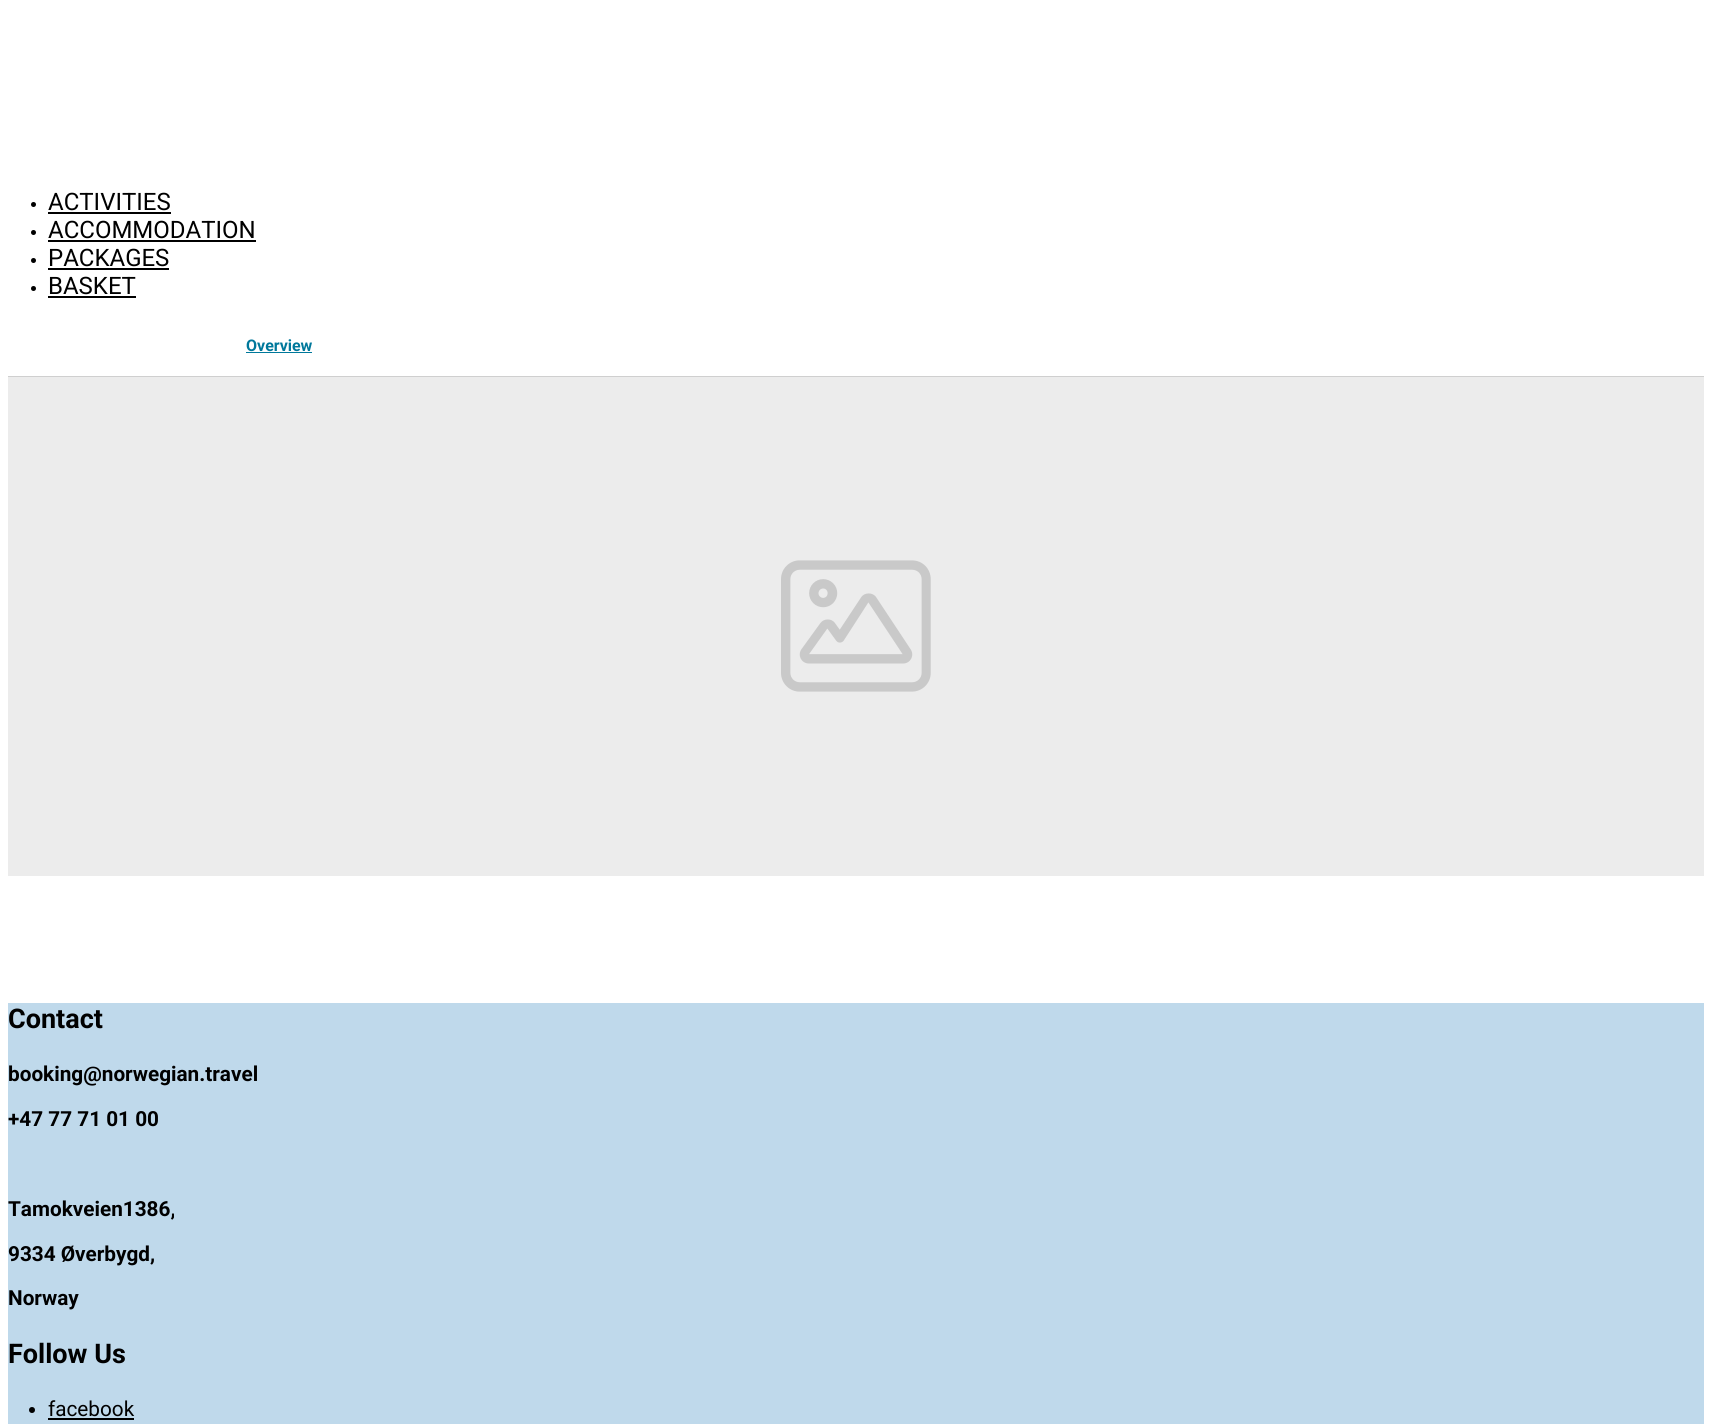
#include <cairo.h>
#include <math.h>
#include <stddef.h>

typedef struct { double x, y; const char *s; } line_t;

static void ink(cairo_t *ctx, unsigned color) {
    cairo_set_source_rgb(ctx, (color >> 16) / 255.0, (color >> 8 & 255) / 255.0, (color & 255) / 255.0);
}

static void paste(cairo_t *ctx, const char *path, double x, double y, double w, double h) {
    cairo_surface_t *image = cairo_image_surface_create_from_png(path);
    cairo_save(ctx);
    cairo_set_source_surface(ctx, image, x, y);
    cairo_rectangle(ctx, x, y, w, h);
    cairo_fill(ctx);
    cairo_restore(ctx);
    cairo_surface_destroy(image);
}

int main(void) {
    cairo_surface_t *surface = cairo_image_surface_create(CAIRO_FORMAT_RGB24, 1712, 1424);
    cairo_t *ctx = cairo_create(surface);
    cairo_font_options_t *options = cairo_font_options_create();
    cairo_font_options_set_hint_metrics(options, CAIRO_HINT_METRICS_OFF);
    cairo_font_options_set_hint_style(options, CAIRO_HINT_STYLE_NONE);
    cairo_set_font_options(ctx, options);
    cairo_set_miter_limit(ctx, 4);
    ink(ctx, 0xFFFFFF);
    cairo_paint(ctx);
    ink(ctx, 0xECECEC);
    cairo_rectangle(ctx, 8, 377, 1696, 499);
    cairo_fill(ctx);
    ink(ctx, 0x000000);
    cairo_arc(ctx, 33.5, 204.5, 2.5, 0, 2 * M_PI);
    cairo_fill(ctx);
    cairo_select_font_face(ctx, "Roboto", CAIRO_FONT_SLANT_NORMAL, CAIRO_FONT_WEIGHT_NORMAL);
    cairo_set_font_size(ctx, 24);
    cairo_move_to(ctx, 48, 210);
    cairo_show_text(ctx, "ACTIVITIES");
    cairo_rectangle(ctx, 48, 212, 123, 2);
    cairo_fill(ctx);
    cairo_arc(ctx, 33.5, 232.5, 2.5, 0, 2 * M_PI);
    cairo_fill(ctx);
    cairo_move_to(ctx, 48, 238);
    cairo_show_text(ctx, "ACCOMMODATION");
    cairo_rectangle(ctx, 48, 240, 208, 2);
    cairo_fill(ctx);
    cairo_arc(ctx, 33.5, 260.5, 2.5, 0, 2 * M_PI);
    cairo_fill(ctx);
    cairo_move_to(ctx, 48, 266);
    cairo_show_text(ctx, "PACKAGES");
    cairo_rectangle(ctx, 48, 268, 121, 2);
    cairo_fill(ctx);
    cairo_arc(ctx, 33.5, 288.5, 2.5, 0, 2 * M_PI);
    cairo_fill(ctx);
    cairo_move_to(ctx, 48, 294);
    cairo_show_text(ctx, "BASKET");
    cairo_rectangle(ctx, 48, 296, 88, 2);
    cairo_fill(ctx);
    ink(ctx, 0xCFCFCF);
    cairo_rectangle(ctx, 8, 376, 1696, 1);
    cairo_fill(ctx);
    cairo_select_font_face(ctx, "Roboto", CAIRO_FONT_SLANT_NORMAL, CAIRO_FONT_WEIGHT_BOLD);
    cairo_set_font_size(ctx, 16);
    ink(ctx, 0x00789B);
    cairo_move_to(ctx, 246, 351);
    cairo_show_text(ctx, "Overview");
    cairo_rectangle(ctx, 246, 352, 66, 1);
    cairo_fill(ctx);
    paste(ctx, "media/1.png", 781, 560, 150, 132);
    ink(ctx, 0xBFD9EB);
    cairo_rectangle(ctx, 8, 1003, 1696, 421);
    cairo_fill(ctx);
    cairo_set_font_size(ctx, 27);
    ink(ctx, 0x000000);
    cairo_move_to(ctx, 8, 1028);
    cairo_show_text(ctx, "Contact");
    cairo_set_font_size(ctx, 20.75);
    {
        static const line_t items[] = {
            {8, 1081, "booking@norwegian.travel"},
            {8, 1126, "+47 77 71 01 00"},
            {8, 1216, "Tamokveien1386,"},
            {8, 1261, "9334 Øverbygd,"},
            {8, 1305, "Norway"},
        };
        for (size_t i = 0; i < sizeof items / sizeof *items; i++) {
            cairo_move_to(ctx, items[i].x, items[i].y);
            cairo_show_text(ctx, items[i].s);
        }
    }
    cairo_set_font_size(ctx, 27);
    cairo_move_to(ctx, 8, 1363);
    cairo_show_text(ctx, "Follow Us");
    cairo_new_path(ctx);
    cairo_arc(ctx, 32, 1410, 3, 0, 2 * M_PI);
    cairo_fill(ctx);
    cairo_select_font_face(ctx, "Roboto", CAIRO_FONT_SLANT_NORMAL, CAIRO_FONT_WEIGHT_NORMAL);
    cairo_set_font_size(ctx, 20.75);
    cairo_move_to(ctx, 48, 1416);
    cairo_show_text(ctx, "facebook");
    cairo_rectangle(ctx, 48, 1418, 86, 2);
    cairo_fill(ctx);
    cairo_surface_write_to_png(surface, "image.png");
    cairo_font_options_destroy(options);
    cairo_destroy(ctx);
    cairo_surface_destroy(surface);
    return 0;
}
